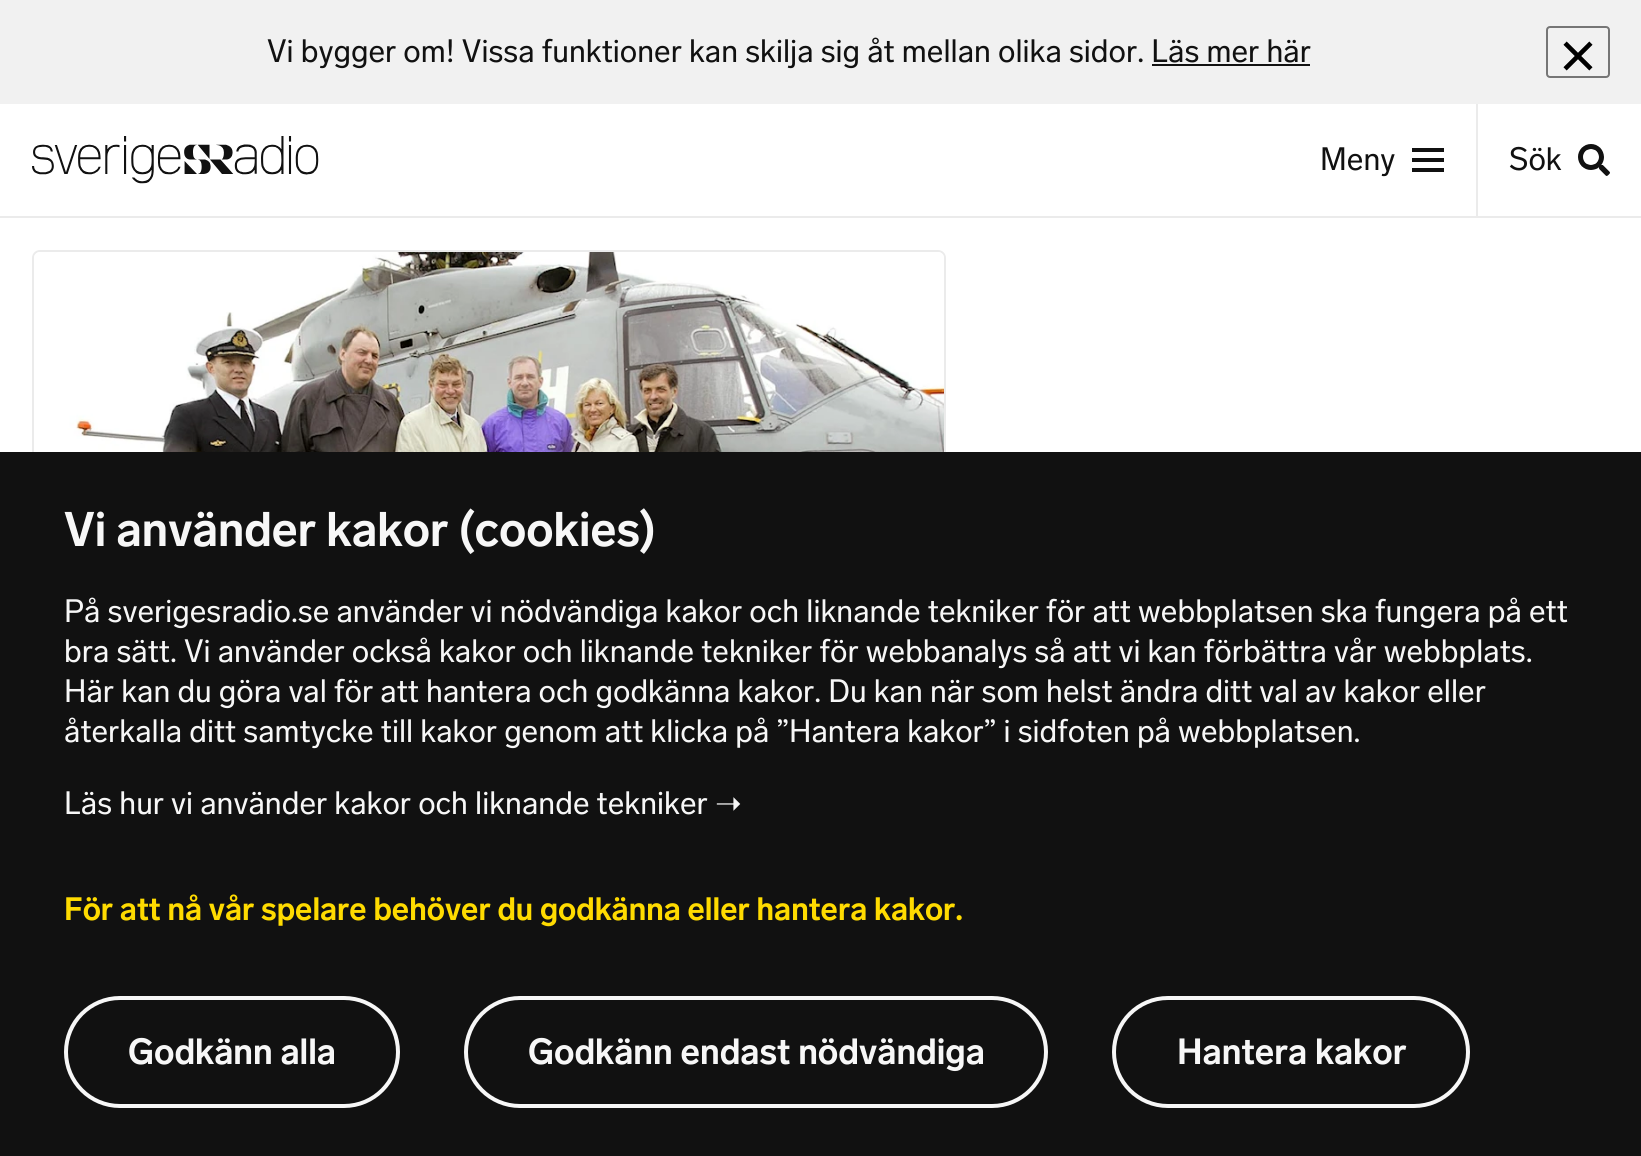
#include <cairo.h>
#include <math.h>
#include <stddef.h>

typedef struct { double x, y; const char *s; } line_t;
typedef struct { double x, y, w, h; unsigned color; } box_t;

static void ink(cairo_t *ctx, unsigned color) {
    cairo_set_source_rgb(ctx, (color >> 16) / 255.0, (color >> 8 & 255) / 255.0, (color & 255) / 255.0);
}

static void round_path(cairo_t *ctx, double x, double y, double w, double h, double r) {
    cairo_new_sub_path(ctx);
    cairo_arc(ctx, x + w - r, y + h - r, r, 0, M_PI / 2);
    cairo_arc(ctx, x + r, y + h - r, r, M_PI / 2, M_PI);
    cairo_arc(ctx, x + r, y + r, r, M_PI, 1.5 * M_PI);
    cairo_arc(ctx, x + w - r, y + r, r, 1.5 * M_PI, 2 * M_PI);
    cairo_close_path(ctx);
}

static void paste(cairo_t *ctx, const char *path, double x, double y, double w, double h) {
    cairo_surface_t *image = cairo_image_surface_create_from_png(path);
    cairo_save(ctx);
    cairo_set_source_surface(ctx, image, x, y);
    cairo_rectangle(ctx, x, y, w, h);
    cairo_fill(ctx);
    cairo_restore(ctx);
    cairo_surface_destroy(image);
}

int main(void) {
    cairo_surface_t *surface = cairo_image_surface_create(CAIRO_FORMAT_RGB24, 1641, 1156);
    cairo_t *ctx = cairo_create(surface);
    cairo_font_options_t *options = cairo_font_options_create();
    cairo_font_options_set_hint_metrics(options, CAIRO_HINT_METRICS_OFF);
    cairo_font_options_set_hint_style(options, CAIRO_HINT_STYLE_NONE);
    cairo_set_font_options(ctx, options);
    cairo_set_miter_limit(ctx, 4);
    ink(ctx, 0xFFFFFF);
    cairo_paint(ctx);
    ink(ctx, 0xF1F1F1);
    cairo_rectangle(ctx, 0, 0, 1641, 104);
    cairo_fill(ctx);
    cairo_select_font_face(ctx, "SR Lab", CAIRO_FONT_SLANT_NORMAL, CAIRO_FONT_WEIGHT_NORMAL);
    cairo_set_font_size(ctx, 32);
    ink(ctx, 0x111111);
    cairo_move_to(ctx, 267, 62);
    cairo_show_text(ctx, "Vi bygger om! Vissa funktioner kan skilja sig åt mellan olika sidor. Läs mer här");
    cairo_rectangle(ctx, 1152, 64, 158, 2);
    cairo_fill(ctx);
    round_path(ctx, 1547, 27, 62, 50, 3);
    ink(ctx, 0x767676);
    cairo_stroke(ctx);
    paste(ctx, "media/1.png", 1563, 41, 30, 30);
    ink(ctx, 0xEBEBEB);
    cairo_rectangle(ctx, 0, 216, 1641, 2);
    cairo_fill(ctx);
    paste(ctx, "media/2.png", 32, 136, 287, 48);
    ink(ctx, 0x111111);
    cairo_move_to(ctx, 1320, 170);
    cairo_show_text(ctx, "Meny");
    {
        static const box_t items[] = {
            {1412, 148, 32, 4, 0x111111},
            {1412, 158, 32, 4, 0x111111},
            {1412, 168, 32, 4, 0x111111},
            {1476, 104, 2, 112, 0xEBEBEB},
        };
        for (size_t i = 0; i < sizeof items / sizeof *items; i++) {
            ink(ctx, items[i].color);
            cairo_rectangle(ctx, items[i].x, items[i].y, items[i].w, items[i].h);
            cairo_fill(ctx);
        }
    }
    ink(ctx, 0x111111);
    cairo_move_to(ctx, 1509, 170);
    cairo_show_text(ctx, "Sök");
    paste(ctx, "media/3.png", 1578, 144, 32, 32);
    round_path(ctx, 33, 251, 912, 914, 7);
    ink(ctx, 0xEBEBEB);
    cairo_stroke(ctx);
    paste(ctx, "media/4.png", 34, 252, 910, 200);
    ink(ctx, 0x111111);
    cairo_rectangle(ctx, 0, 452, 1641, 704);
    cairo_fill(ctx);
    cairo_select_font_face(ctx, "SR Lab SemiBold", CAIRO_FONT_SLANT_NORMAL, CAIRO_FONT_WEIGHT_NORMAL);
    cairo_set_font_size(ctx, 48);
    ink(ctx, 0xF7F7F7);
    cairo_move_to(ctx, 64, 546);
    cairo_show_text(ctx, "Vi använder kakor (cookies)");
    cairo_select_font_face(ctx, "SR Lab", CAIRO_FONT_SLANT_NORMAL, CAIRO_FONT_WEIGHT_NORMAL);
    cairo_set_font_size(ctx, 32);
    {
        static const line_t items[] = {
            {64, 622, "På sverigesradio.se använder vi nödvändiga kakor och liknande tekniker för att webbplatsen ska fungera på ett"},
            {64, 662, "bra sätt. Vi använder också kakor och liknande tekniker för webbanalys så att vi kan förbättra vår webbplats."},
            {64, 702, "Här kan du göra val för att hantera och godkänna kakor. Du kan när som helst ändra ditt val av kakor eller"},
            {64, 742, "återkalla ditt samtycke till kakor genom att klicka på ”Hantera kakor” i sidfoten på webbplatsen."},
            {64, 814, "Läs hur vi använder kakor och liknande tekniker"},
        };
        for (size_t i = 0; i < sizeof items / sizeof *items; i++) {
            cairo_move_to(ctx, items[i].x, items[i].y);
            cairo_show_text(ctx, items[i].s);
        }
    }
    cairo_select_font_face(ctx, "DejaVu Sans", CAIRO_FONT_SLANT_NORMAL, CAIRO_FONT_WEIGHT_NORMAL);
    cairo_move_to(ctx, 715, 814);
    cairo_show_text(ctx, "➝");
    cairo_select_font_face(ctx, "SR Lab SemiBold", CAIRO_FONT_SLANT_NORMAL, CAIRO_FONT_WEIGHT_NORMAL);
    ink(ctx, 0xFFDB00);
    cairo_move_to(ctx, 64, 920);
    cairo_show_text(ctx, "För att nå vår spelare behöver du godkänna eller hantera kakor.");
    round_path(ctx, 66, 998, 332, 108, 54);
    ink(ctx, 0xF7F7F7);
    cairo_set_line_width(ctx, 4);
    cairo_stroke(ctx);
    cairo_set_font_size(ctx, 36);
    cairo_move_to(ctx, 128, 1064);
    cairo_show_text(ctx, "Godkänn alla");
    round_path(ctx, 466, 998, 580, 108, 54);
    cairo_stroke(ctx);
    cairo_move_to(ctx, 528, 1064);
    cairo_show_text(ctx, "Godkänn endast nödvändiga");
    round_path(ctx, 1114, 998, 354, 108, 54);
    cairo_stroke(ctx);
    cairo_move_to(ctx, 1177, 1064);
    cairo_show_text(ctx, "Hantera kakor");
    cairo_surface_write_to_png(surface, "image.png");
    cairo_font_options_destroy(options);
    cairo_destroy(ctx);
    cairo_surface_destroy(surface);
    return 0;
}
